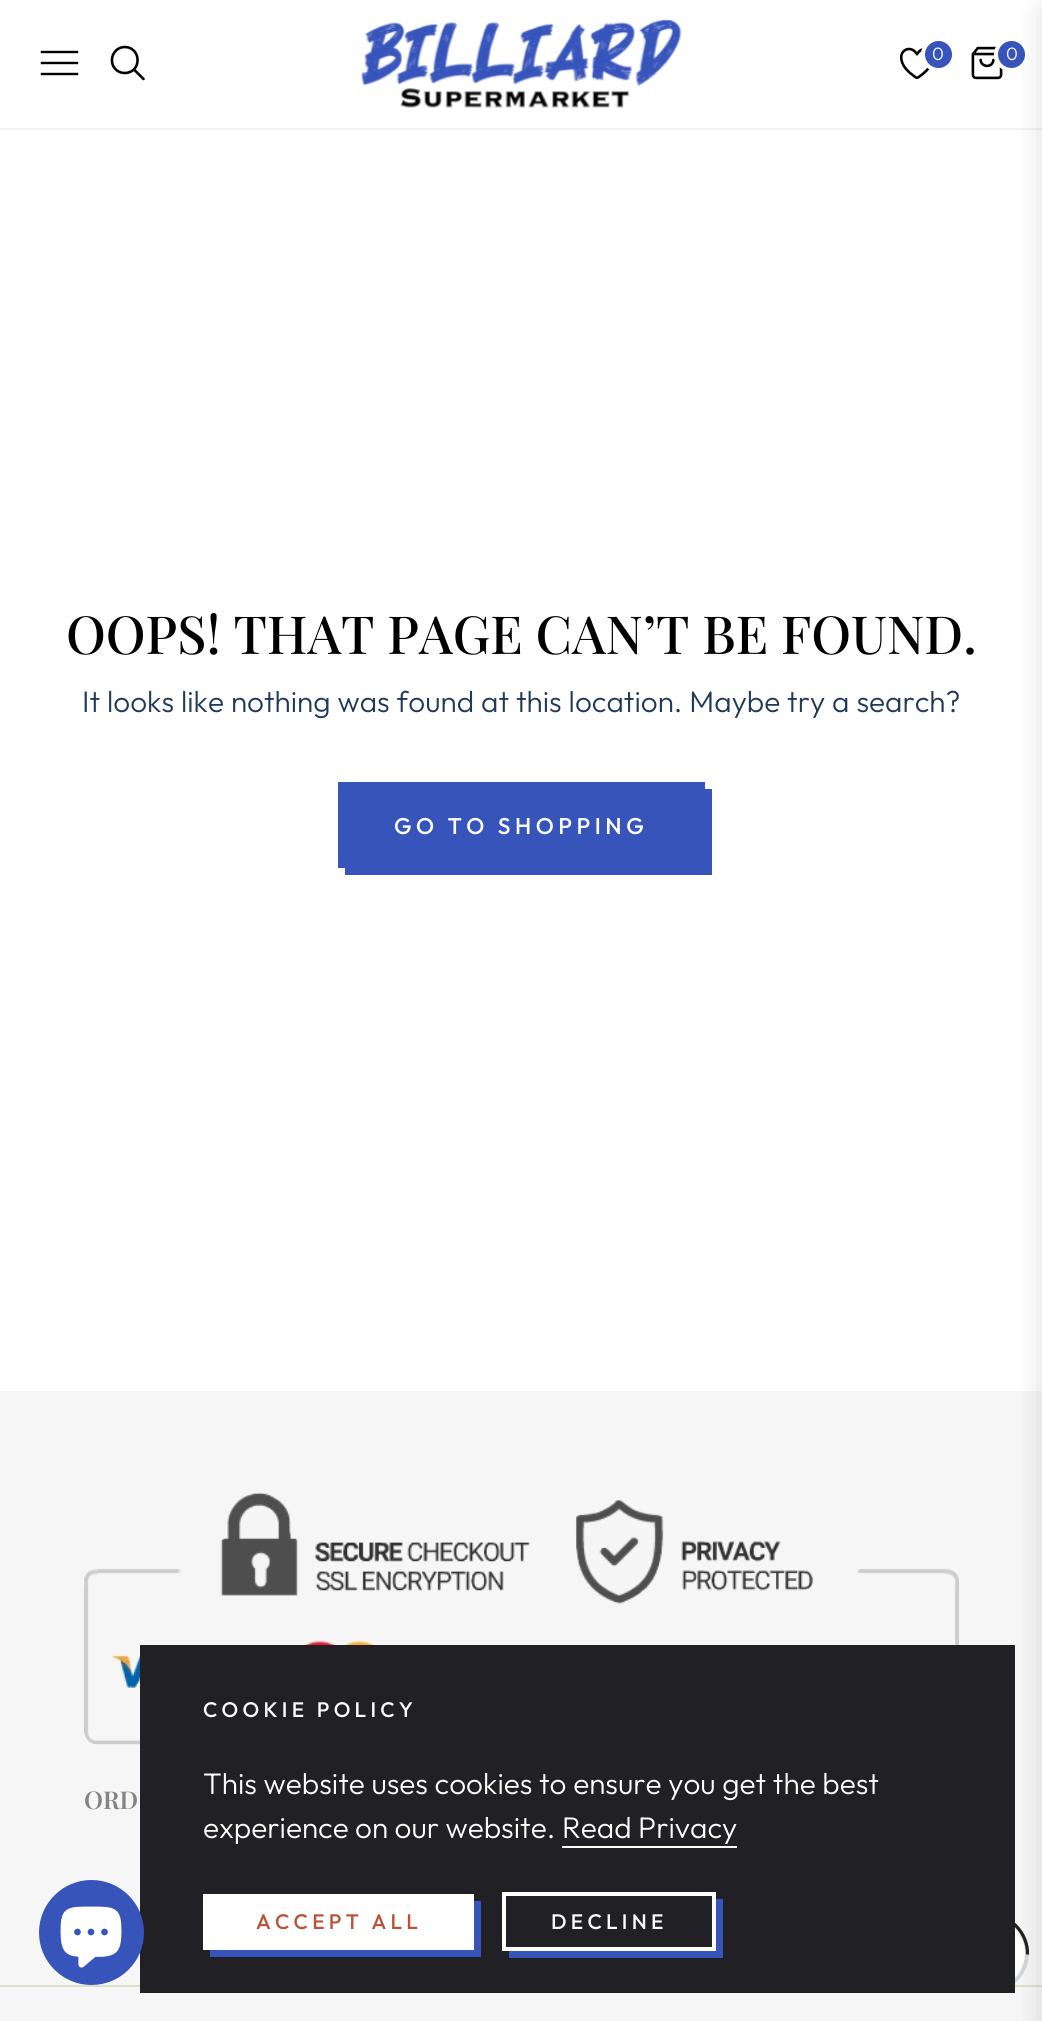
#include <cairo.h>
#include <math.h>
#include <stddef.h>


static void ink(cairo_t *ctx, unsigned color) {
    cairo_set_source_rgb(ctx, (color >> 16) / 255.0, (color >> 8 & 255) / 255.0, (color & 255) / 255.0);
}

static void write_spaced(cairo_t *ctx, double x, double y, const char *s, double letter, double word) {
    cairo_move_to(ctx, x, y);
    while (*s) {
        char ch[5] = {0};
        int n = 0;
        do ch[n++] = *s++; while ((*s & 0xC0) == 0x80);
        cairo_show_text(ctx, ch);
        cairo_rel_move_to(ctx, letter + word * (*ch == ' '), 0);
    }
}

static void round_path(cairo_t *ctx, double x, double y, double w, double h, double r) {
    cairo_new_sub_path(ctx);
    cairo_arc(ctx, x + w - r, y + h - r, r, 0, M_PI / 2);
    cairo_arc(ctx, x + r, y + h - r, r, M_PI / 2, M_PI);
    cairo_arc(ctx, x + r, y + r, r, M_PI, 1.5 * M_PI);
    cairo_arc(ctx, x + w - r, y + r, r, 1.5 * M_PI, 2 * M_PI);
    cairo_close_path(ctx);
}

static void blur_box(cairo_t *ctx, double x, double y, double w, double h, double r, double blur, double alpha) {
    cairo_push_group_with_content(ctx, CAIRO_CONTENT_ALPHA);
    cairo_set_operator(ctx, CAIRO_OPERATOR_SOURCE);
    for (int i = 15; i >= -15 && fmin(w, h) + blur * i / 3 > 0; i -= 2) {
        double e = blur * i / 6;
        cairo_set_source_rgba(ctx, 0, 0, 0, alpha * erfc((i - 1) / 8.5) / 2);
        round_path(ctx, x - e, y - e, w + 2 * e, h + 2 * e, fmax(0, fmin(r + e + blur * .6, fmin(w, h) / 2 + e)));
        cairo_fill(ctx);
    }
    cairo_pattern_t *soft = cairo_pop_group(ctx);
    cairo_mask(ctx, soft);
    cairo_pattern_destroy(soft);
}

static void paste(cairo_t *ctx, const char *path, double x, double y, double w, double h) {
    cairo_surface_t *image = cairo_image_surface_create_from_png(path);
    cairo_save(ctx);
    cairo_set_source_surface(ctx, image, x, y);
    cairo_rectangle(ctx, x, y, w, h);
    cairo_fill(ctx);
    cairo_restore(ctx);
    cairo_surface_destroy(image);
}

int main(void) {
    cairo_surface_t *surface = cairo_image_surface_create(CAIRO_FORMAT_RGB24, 1042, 2021);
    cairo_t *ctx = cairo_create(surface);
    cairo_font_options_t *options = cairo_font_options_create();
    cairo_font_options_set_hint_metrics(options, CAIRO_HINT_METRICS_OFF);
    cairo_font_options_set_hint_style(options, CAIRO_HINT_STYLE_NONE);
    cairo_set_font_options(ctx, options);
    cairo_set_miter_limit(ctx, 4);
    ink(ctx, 0xFFFFFF);
    cairo_paint(ctx);
    cairo_rectangle(ctx, -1, -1, 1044, 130);
    ink(ctx, 0xF2F2F2);
    cairo_stroke(ctx);
    cairo_new_path(ctx);
    cairo_move_to(ctx, 42, 74);
    cairo_line_to(ctx, 77, 74);
    cairo_move_to(ctx, 42, 63);
    cairo_line_to(ctx, 77, 63);
    cairo_move_to(ctx, 42, 52);
    cairo_line_to(ctx, 77, 52);
    ink(ctx, 0x000000);
    cairo_set_line_width(ctx, 2.4);
    cairo_set_line_cap(ctx, CAIRO_LINE_CAP_SQUARE);
    cairo_stroke(ctx);
    cairo_new_path(ctx);
    cairo_move_to(ctx, 125, 47);
    cairo_curve_to(ctx, 111.5, 47, 107, 65, 118.5, 71.5);
    cairo_curve_to(ctx, 120.5, 72.5, 122.5, 73, 125, 73);
    cairo_curve_to(ctx, 142, 72.5, 141.5, 47.5, 125, 47);
    cairo_close_path(ctx);
    cairo_set_line_width(ctx, 2.6);
    cairo_set_line_cap(ctx, CAIRO_LINE_CAP_BUTT);
    cairo_stroke(ctx);
    cairo_new_path(ctx);
    cairo_move_to(ctx, 134.5, 70);
    cairo_line_to(ctx, 143.5, 79);
    cairo_set_line_cap(ctx, CAIRO_LINE_CAP_ROUND);
    cairo_stroke(ctx);
    paste(ctx, "media/1.png", 361, 19, 321, 89);
    paste(ctx, "media/2.png", 899, 47, 31, 33);
    ink(ctx, 0x3754BB);
    cairo_arc(ctx, 938.5, 54.5, 15.5, 0, 2 * M_PI);
    cairo_fill_preserve(ctx);
    ink(ctx, 0xFFFFFF);
    cairo_set_line_width(ctx, 4);
    cairo_set_line_cap(ctx, CAIRO_LINE_CAP_BUTT);
    cairo_stroke(ctx);
    cairo_select_font_face(ctx, "Outfit Light", CAIRO_FONT_SLANT_NORMAL, CAIRO_FONT_WEIGHT_NORMAL);
    cairo_set_font_size(ctx, 18);
    cairo_move_to(ctx, 932, 60);
    cairo_show_text(ctx, "0");
    paste(ctx, "media/3.png", 971, 46, 32, 34);
    ink(ctx, 0x3754BB);
    cairo_arc(ctx, 1011.5, 54.5, 15.5, 0, 2 * M_PI);
    cairo_fill_preserve(ctx);
    ink(ctx, 0xFFFFFF);
    cairo_stroke(ctx);
    ink(ctx, 0xF6F6F6);
    cairo_rectangle(ctx, 0, 1391, 1042, 630);
    cairo_fill(ctx);
    ink(ctx, 0xDFDFCA);
    cairo_rectangle(ctx, 0, 1985, 1042, 2);
    cairo_fill(ctx);
    ink(ctx, 0xFFFFFF);
    cairo_arc(ctx, 989, 1953, 40, 0, 2 * M_PI);
    cairo_fill(ctx);
    cairo_arc(ctx, 989, 1953, 38, 0, 2 * M_PI);
    cairo_set_source_rgba(ctx, 0.125, 0.231, 0.349, 0.2);
    cairo_stroke(ctx);
    cairo_new_path(ctx);
    cairo_move_to(ctx, 989, 1914.5);
    cairo_curve_to(ctx, 1010.5, 1914.5, 1028, 1933, 1027.5, 1954.5);
    ink(ctx, 0x222222);
    cairo_set_line_width(ctx, 3.2);
    cairo_stroke(ctx);
    ink(ctx, 0x000000);
    blur_box(ctx, 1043, 14, 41, 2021, 0, 14, 0.15);
    ink(ctx, 0xFFFFFF);
    cairo_move_to(ctx, 1006, 60);
    cairo_show_text(ctx, "0");
    cairo_select_font_face(ctx, "Playfair Display Medium", CAIRO_FONT_SLANT_NORMAL, CAIRO_FONT_WEIGHT_NORMAL);
    cairo_set_font_size(ctx, 52.5);
    ink(ctx, 0x000000);
    cairo_move_to(ctx, 66, 654);
    cairo_show_text(ctx, "OOPS! THAT PAGE CAN’T BE FOUND.");
    cairo_select_font_face(ctx, "Outfit Light", CAIRO_FONT_SLANT_NORMAL, CAIRO_FONT_WEIGHT_NORMAL);
    cairo_set_font_size(ctx, 29.75);
    ink(ctx, 0x203B59);
    write_spaced(ctx, 82, 712, "It looks like nothing was found at this location. Maybe try a search?", 0, 0.5);
    ink(ctx, 0x3754BB);
    cairo_new_path(ctx);
    cairo_move_to(ctx, 345, 868);
    cairo_line_to(ctx, 345, 875);
    cairo_line_to(ctx, 712, 875);
    cairo_line_to(ctx, 712, 789);
    cairo_line_to(ctx, 705, 789);
    cairo_line_to(ctx, 705, 868);
    cairo_close_path(ctx);
    cairo_fill(ctx);
    cairo_rectangle(ctx, 338, 782, 367, 86);
    cairo_fill(ctx);
    cairo_select_font_face(ctx, "Outfit Medium", CAIRO_FONT_SLANT_NORMAL, CAIRO_FONT_WEIGHT_NORMAL);
    cairo_set_font_size(ctx, 22.75);
    ink(ctx, 0xFFFFFF);
    write_spaced(ctx, 394, 834, "GO TO SHOPPING", 4.5, 0);
    paste(ctx, "media/4.png", 84, 1492, 875, 253);
    cairo_select_font_face(ctx, "Playfair Display SemiBold", CAIRO_FONT_SLANT_NORMAL, CAIRO_FONT_WEIGHT_NORMAL);
    cairo_set_font_size(ctx, 24.5);
    ink(ctx, 0x848484);
    cairo_move_to(ctx, 84, 1809);
    cairo_show_text(ctx, "ORD");
    ink(ctx, 0x202025);
    cairo_rectangle(ctx, 140, 1645, 875, 348);
    cairo_fill(ctx);
    cairo_select_font_face(ctx, "Outfit Medium", CAIRO_FONT_SLANT_NORMAL, CAIRO_FONT_WEIGHT_NORMAL);
    cairo_set_font_size(ctx, 21);
    ink(ctx, 0xFFFFFF);
    write_spaced(ctx, 203, 1717, "COOKIE POLICY", 4.25, 0);
    cairo_select_font_face(ctx, "Outfit Light", CAIRO_FONT_SLANT_NORMAL, CAIRO_FONT_WEIGHT_NORMAL);
    cairo_set_font_size(ctx, 29.75);
    write_spaced(ctx, 203, 1794, "This website uses cookies to ensure you get the best", 0, 0.25);
    cairo_move_to(ctx, 203, 1838);
    cairo_show_text(ctx, "experience on our website.");
    cairo_move_to(ctx, 562, 1838);
    cairo_show_text(ctx, "Read Privacy");
    cairo_rectangle(ctx, 562, 1846, 175, 2);
    cairo_fill(ctx);
    ink(ctx, 0x3754BB);
    cairo_new_path(ctx);
    cairo_move_to(ctx, 210, 1950);
    cairo_line_to(ctx, 210, 1957);
    cairo_line_to(ctx, 481, 1957);
    cairo_line_to(ctx, 481, 1901);
    cairo_line_to(ctx, 474, 1901);
    cairo_line_to(ctx, 474, 1950);
    cairo_close_path(ctx);
    cairo_fill(ctx);
    ink(ctx, 0xFFFFFF);
    cairo_rectangle(ctx, 203, 1894, 271, 56);
    cairo_fill(ctx);
    cairo_select_font_face(ctx, "Outfit Medium", CAIRO_FONT_SLANT_NORMAL, CAIRO_FONT_WEIGHT_NORMAL);
    cairo_set_font_size(ctx, 21);
    ink(ctx, 0xBB5237);
    write_spaced(ctx, 256, 1929, "ACCEPT ALL", 4.25, 0);
    ink(ctx, 0x3754BB);
    cairo_new_path(ctx);
    cairo_move_to(ctx, 509, 1951);
    cairo_line_to(ctx, 509, 1958);
    cairo_line_to(ctx, 723, 1958);
    cairo_line_to(ctx, 723, 1899);
    cairo_line_to(ctx, 716, 1899);
    cairo_line_to(ctx, 716, 1951);
    cairo_close_path(ctx);
    cairo_fill(ctx);
    cairo_rectangle(ctx, 504, 1894, 210, 55);
    ink(ctx, 0xFFFFFF);
    cairo_set_line_width(ctx, 4);
    cairo_stroke(ctx);
    write_spaced(ctx, 551, 1929, "DECLINE", 4.25, 0);
    ink(ctx, 0x3754BB);
    cairo_new_path(ctx);
    cairo_arc(ctx, 91.5, 1932.5, 52.5, 0, 2 * M_PI);
    cairo_fill(ctx);
    paste(ctx, "media/5.png", 60, 1906, 62, 62);
    cairo_surface_write_to_png(surface, "image.png");
    cairo_font_options_destroy(options);
    cairo_destroy(ctx);
    cairo_surface_destroy(surface);
    return 0;
}
